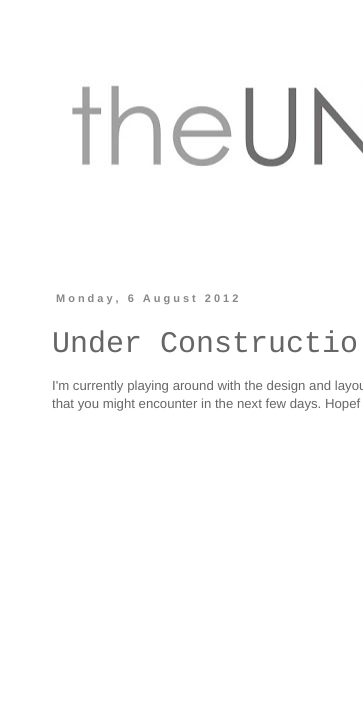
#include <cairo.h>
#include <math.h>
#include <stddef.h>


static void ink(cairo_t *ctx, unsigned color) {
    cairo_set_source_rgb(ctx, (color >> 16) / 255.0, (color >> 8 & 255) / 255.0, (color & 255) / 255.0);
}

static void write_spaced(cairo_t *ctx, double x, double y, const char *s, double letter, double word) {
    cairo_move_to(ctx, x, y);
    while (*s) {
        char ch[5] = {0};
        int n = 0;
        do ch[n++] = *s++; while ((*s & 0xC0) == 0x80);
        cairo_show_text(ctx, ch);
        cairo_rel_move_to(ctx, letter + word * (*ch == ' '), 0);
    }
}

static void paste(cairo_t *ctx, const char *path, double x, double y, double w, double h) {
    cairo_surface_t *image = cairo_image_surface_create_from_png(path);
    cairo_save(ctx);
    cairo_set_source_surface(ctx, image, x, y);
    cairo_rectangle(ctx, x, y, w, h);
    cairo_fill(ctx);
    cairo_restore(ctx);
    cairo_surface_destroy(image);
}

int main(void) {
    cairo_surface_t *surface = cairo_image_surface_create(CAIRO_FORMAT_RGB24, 363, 715);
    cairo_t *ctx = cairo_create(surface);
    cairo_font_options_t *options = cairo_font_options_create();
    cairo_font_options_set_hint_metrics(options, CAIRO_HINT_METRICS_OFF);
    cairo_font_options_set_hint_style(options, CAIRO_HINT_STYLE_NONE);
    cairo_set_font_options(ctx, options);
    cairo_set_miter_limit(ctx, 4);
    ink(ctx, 0xFFFFFF);
    cairo_paint(ctx);
    paste(ctx, "media/1.png", 72, 80, 291, 89);
    cairo_select_font_face(ctx, "Liberation Sans", CAIRO_FONT_SLANT_NORMAL, CAIRO_FONT_WEIGHT_BOLD);
    cairo_set_font_size(ctx, 11);
    ink(ctx, 0x888888);
    write_spaced(ctx, 56, 302, "Monday, 6 August 2012", 3, 0);
    cairo_select_font_face(ctx, "Liberation Mono", CAIRO_FONT_SLANT_NORMAL, CAIRO_FONT_WEIGHT_NORMAL);
    cairo_set_font_size(ctx, 30);
    ink(ctx, 0x666666);
    cairo_move_to(ctx, 52, 352);
    cairo_show_text(ctx, "Under Constructio");
    cairo_select_font_face(ctx, "Liberation Sans", CAIRO_FONT_SLANT_NORMAL, CAIRO_FONT_WEIGHT_NORMAL);
    cairo_set_font_size(ctx, 13.2);
    cairo_move_to(ctx, 52, 390);
    cairo_show_text(ctx, "I'm currently playing around with the design and layou");
    cairo_move_to(ctx, 52, 408);
    cairo_show_text(ctx, "that you might encounter in the next few days. Hopef");
    cairo_surface_write_to_png(surface, "image.png");
    cairo_font_options_destroy(options);
    cairo_destroy(ctx);
    cairo_surface_destroy(surface);
    return 0;
}
